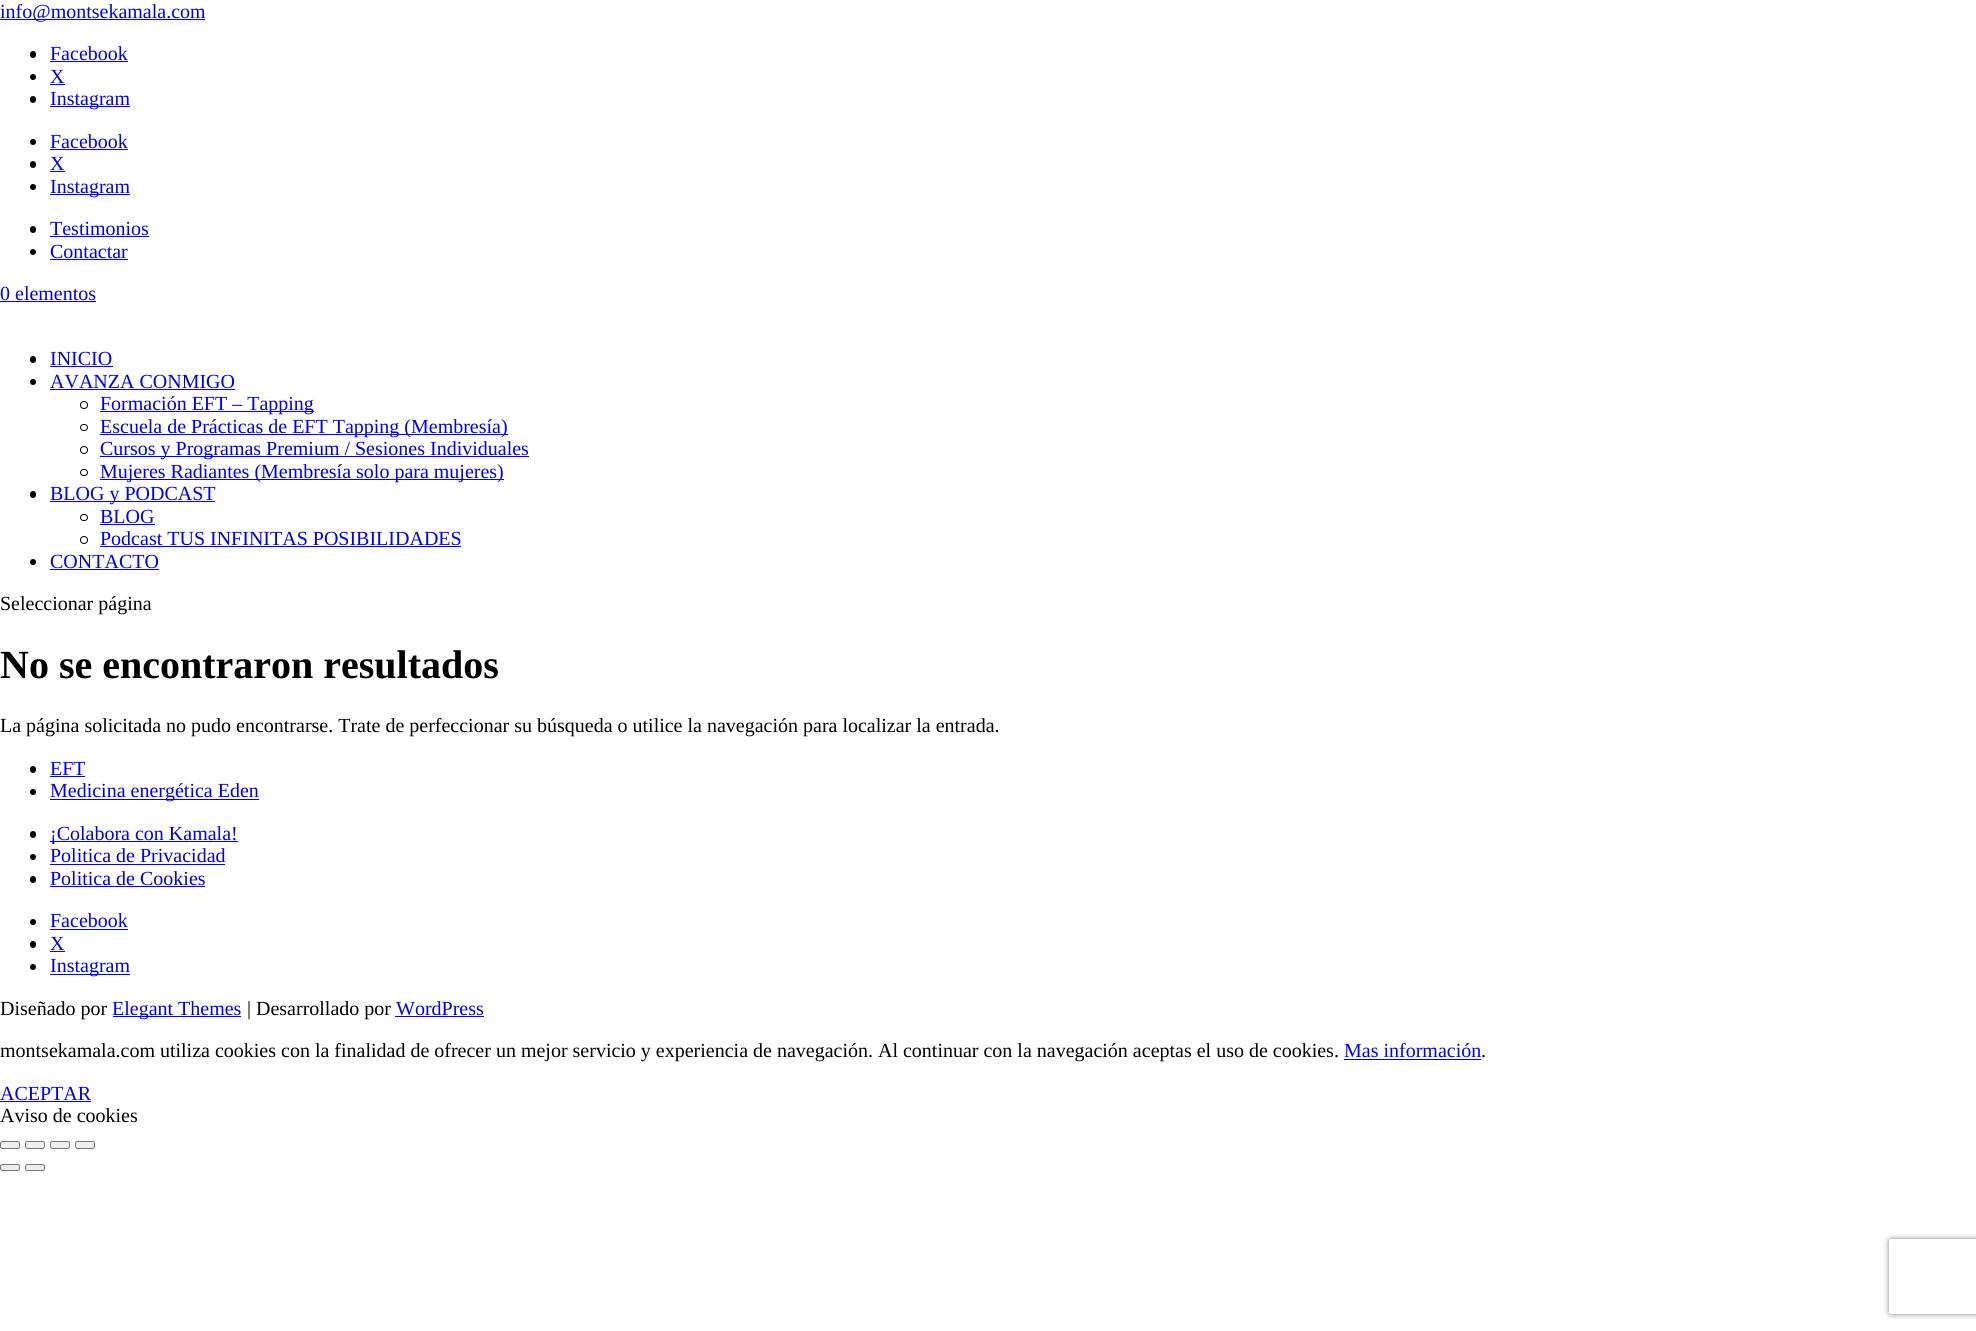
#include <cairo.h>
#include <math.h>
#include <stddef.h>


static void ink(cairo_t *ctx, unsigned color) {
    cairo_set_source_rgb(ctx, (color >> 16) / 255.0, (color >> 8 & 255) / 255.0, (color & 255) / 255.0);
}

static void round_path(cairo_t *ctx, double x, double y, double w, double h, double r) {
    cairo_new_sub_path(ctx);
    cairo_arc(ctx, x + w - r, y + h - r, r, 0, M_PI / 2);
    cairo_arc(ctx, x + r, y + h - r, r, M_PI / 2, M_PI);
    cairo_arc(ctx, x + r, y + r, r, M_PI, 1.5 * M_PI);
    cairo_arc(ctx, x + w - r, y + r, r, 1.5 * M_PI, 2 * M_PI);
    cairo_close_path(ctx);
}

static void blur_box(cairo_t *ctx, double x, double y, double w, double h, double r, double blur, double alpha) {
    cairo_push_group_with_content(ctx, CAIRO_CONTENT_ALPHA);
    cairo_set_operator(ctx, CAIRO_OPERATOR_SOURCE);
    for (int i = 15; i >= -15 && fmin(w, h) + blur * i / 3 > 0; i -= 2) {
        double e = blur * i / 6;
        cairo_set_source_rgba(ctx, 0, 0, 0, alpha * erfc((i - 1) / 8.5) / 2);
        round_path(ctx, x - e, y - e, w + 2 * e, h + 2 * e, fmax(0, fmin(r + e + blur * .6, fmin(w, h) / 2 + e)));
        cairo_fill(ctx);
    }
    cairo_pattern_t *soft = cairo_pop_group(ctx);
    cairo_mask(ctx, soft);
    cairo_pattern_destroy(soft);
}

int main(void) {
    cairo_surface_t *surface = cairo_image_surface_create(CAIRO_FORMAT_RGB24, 1976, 1331);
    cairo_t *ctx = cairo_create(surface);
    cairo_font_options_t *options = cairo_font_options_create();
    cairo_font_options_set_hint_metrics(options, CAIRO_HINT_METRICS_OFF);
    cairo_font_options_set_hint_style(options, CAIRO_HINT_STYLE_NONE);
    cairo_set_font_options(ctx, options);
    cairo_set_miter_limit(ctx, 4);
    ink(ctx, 0xFFFFFF);
    cairo_paint(ctx);
    ink(ctx, 0x0000EE);
    cairo_rectangle(ctx, 0, 19, 205, 1);
    cairo_fill(ctx);
    cairo_select_font_face(ctx, "Liberation Serif", CAIRO_FONT_SLANT_NORMAL, CAIRO_FONT_WEIGHT_NORMAL);
    cairo_set_font_size(ctx, 20);
    cairo_move_to(ctx, 0, 18);
    cairo_show_text(ctx, "info@montsekamala.com");
    ink(ctx, 0x000000);
    round_path(ctx, 30, 51, 6, 7, 3);
    cairo_fill(ctx);
    ink(ctx, 0x0000EE);
    cairo_move_to(ctx, 50, 60);
    cairo_show_text(ctx, "Facebook");
    cairo_rectangle(ctx, 50, 61, 78, 1);
    cairo_fill(ctx);
    ink(ctx, 0x000000);
    cairo_arc(ctx, 33, 77, 3, 0, 2 * M_PI);
    cairo_fill(ctx);
    ink(ctx, 0x0000EE);
    cairo_move_to(ctx, 50, 83);
    cairo_show_text(ctx, "X");
    cairo_rectangle(ctx, 50, 84, 15, 1);
    cairo_fill(ctx);
    ink(ctx, 0x000000);
    round_path(ctx, 30, 96, 6, 7, 3);
    cairo_fill(ctx);
    ink(ctx, 0x0000EE);
    cairo_rectangle(ctx, 50, 106, 80, 1);
    cairo_fill(ctx);
    cairo_move_to(ctx, 50, 105);
    cairo_show_text(ctx, "Instagram");
    ink(ctx, 0x000000);
    cairo_new_path(ctx);
    cairo_arc(ctx, 33, 142, 3, 0, 2 * M_PI);
    cairo_fill(ctx);
    ink(ctx, 0x0000EE);
    cairo_move_to(ctx, 50, 148);
    cairo_show_text(ctx, "Facebook");
    cairo_rectangle(ctx, 50, 149, 78, 1);
    cairo_fill(ctx);
    ink(ctx, 0x000000);
    round_path(ctx, 30, 161, 6, 7, 3);
    cairo_fill(ctx);
    ink(ctx, 0x0000EE);
    cairo_move_to(ctx, 50, 170);
    cairo_show_text(ctx, "X");
    cairo_rectangle(ctx, 50, 171, 15, 1);
    cairo_fill(ctx);
    ink(ctx, 0x000000);
    cairo_arc(ctx, 33, 187, 3, 0, 2 * M_PI);
    cairo_fill(ctx);
    ink(ctx, 0x0000EE);
    cairo_rectangle(ctx, 50, 194, 80, 1);
    cairo_fill(ctx);
    cairo_move_to(ctx, 50, 193);
    cairo_show_text(ctx, "Instagram");
    ink(ctx, 0x000000);
    round_path(ctx, 30, 226, 6, 7, 3);
    cairo_fill(ctx);
    ink(ctx, 0x0000EE);
    cairo_move_to(ctx, 50, 235);
    cairo_show_text(ctx, "Testimonios");
    cairo_rectangle(ctx, 50, 236, 99, 1);
    cairo_fill(ctx);
    ink(ctx, 0x000000);
    cairo_arc(ctx, 33, 252, 3, 0, 2 * M_PI);
    cairo_fill(ctx);
    ink(ctx, 0x0000EE);
    cairo_move_to(ctx, 50, 258);
    cairo_show_text(ctx, "Contactar");
    cairo_rectangle(ctx, 50, 259, 78, 1);
    cairo_fill(ctx);
    cairo_move_to(ctx, 0, 300);
    cairo_show_text(ctx, "0 elementos");
    cairo_rectangle(ctx, 0, 301, 96, 1);
    cairo_fill(ctx);
    ink(ctx, 0x000000);
    round_path(ctx, 30, 356, 6, 7, 3);
    cairo_fill(ctx);
    ink(ctx, 0x0000EE);
    cairo_move_to(ctx, 50, 365);
    cairo_show_text(ctx, "INICIO");
    cairo_rectangle(ctx, 50, 366, 63, 1);
    cairo_fill(ctx);
    ink(ctx, 0x000000);
    cairo_arc(ctx, 33, 382, 3, 0, 2 * M_PI);
    cairo_fill(ctx);
    ink(ctx, 0x0000EE);
    cairo_move_to(ctx, 50, 388);
    cairo_show_text(ctx, "AVANZA CONMIGO");
    cairo_rectangle(ctx, 50, 389, 185, 1);
    cairo_fill(ctx);
    cairo_arc(ctx, 84, 405, 3.5, 0, 2 * M_PI);
    ink(ctx, 0x000000);
    cairo_set_line_width(ctx, 1);
    cairo_stroke(ctx);
    ink(ctx, 0x0000EE);
    cairo_rectangle(ctx, 100, 411, 214, 1);
    cairo_fill(ctx);
    cairo_move_to(ctx, 100, 410);
    cairo_show_text(ctx, "Formación EFT – Tapping");
    round_path(ctx, 80.5, 424.5, 7, 6, 3);
    ink(ctx, 0x000000);
    cairo_stroke(ctx);
    ink(ctx, 0x0000EE);
    cairo_rectangle(ctx, 100, 434, 408, 1);
    cairo_fill(ctx);
    cairo_move_to(ctx, 100, 433);
    cairo_show_text(ctx, "Escuela de Prácticas de EFT Tapping (Membresía)");
    cairo_new_path(ctx);
    cairo_arc(ctx, 84, 450, 3.5, 0, 2 * M_PI);
    ink(ctx, 0x000000);
    cairo_stroke(ctx);
    ink(ctx, 0x0000EE);
    cairo_rectangle(ctx, 100, 456, 429, 1);
    cairo_fill(ctx);
    cairo_move_to(ctx, 100, 455);
    cairo_show_text(ctx, "Cursos y Programas Premium / Sesiones Individuales");
    round_path(ctx, 80.5, 469.5, 7, 6, 3);
    ink(ctx, 0x000000);
    cairo_stroke(ctx);
    ink(ctx, 0x0000EE);
    cairo_rectangle(ctx, 100, 479, 404, 1);
    cairo_fill(ctx);
    cairo_move_to(ctx, 100, 478);
    cairo_show_text(ctx, "Mujeres Radiantes (Membresía solo para mujeres)");
    ink(ctx, 0x000000);
    round_path(ctx, 30, 491, 6, 7, 3);
    cairo_fill(ctx);
    ink(ctx, 0x0000EE);
    cairo_rectangle(ctx, 50, 501, 165, 1);
    cairo_fill(ctx);
    cairo_move_to(ctx, 50, 500);
    cairo_show_text(ctx, "BLOG y PODCAST");
    round_path(ctx, 80.5, 514.5, 7, 6, 3);
    ink(ctx, 0x000000);
    cairo_stroke(ctx);
    ink(ctx, 0x0000EE);
    cairo_move_to(ctx, 100, 523);
    cairo_show_text(ctx, "BLOG");
    cairo_rectangle(ctx, 100, 524, 55, 1);
    cairo_fill(ctx);
    cairo_arc(ctx, 84, 540, 3.5, 0, 2 * M_PI);
    ink(ctx, 0x000000);
    cairo_stroke(ctx);
    ink(ctx, 0x0000EE);
    cairo_move_to(ctx, 100, 545);
    cairo_show_text(ctx, "Podcast TUS INFINITAS POSIBILIDADES");
    cairo_rectangle(ctx, 100, 546, 361, 1);
    cairo_fill(ctx);
    ink(ctx, 0x000000);
    cairo_arc(ctx, 33, 562, 3, 0, 2 * M_PI);
    cairo_fill(ctx);
    ink(ctx, 0x0000EE);
    cairo_move_to(ctx, 50, 568);
    cairo_show_text(ctx, "CONTACTO");
    cairo_rectangle(ctx, 50, 569, 109, 1);
    cairo_fill(ctx);
    ink(ctx, 0x000000);
    cairo_move_to(ctx, 0, 610);
    cairo_show_text(ctx, "Seleccionar página");
    cairo_select_font_face(ctx, "Liberation Serif", CAIRO_FONT_SLANT_NORMAL, CAIRO_FONT_WEIGHT_BOLD);
    cairo_set_font_size(ctx, 40);
    cairo_move_to(ctx, 0, 678);
    cairo_show_text(ctx, "No se encontraron resultados");
    cairo_select_font_face(ctx, "Liberation Serif", CAIRO_FONT_SLANT_NORMAL, CAIRO_FONT_WEIGHT_NORMAL);
    cairo_set_font_size(ctx, 20);
    cairo_move_to(ctx, 0, 732);
    cairo_show_text(ctx, "La página solicitada no pudo encontrarse. Trate de perfeccionar su búsqueda o utilice la navegación para localizar la entrada.");
    round_path(ctx, 30, 766, 6, 7, 3);
    cairo_fill(ctx);
    ink(ctx, 0x0000EE);
    cairo_move_to(ctx, 50, 775);
    cairo_show_text(ctx, "EFT");
    cairo_rectangle(ctx, 50, 776, 35, 1);
    cairo_fill(ctx);
    ink(ctx, 0x000000);
    cairo_arc(ctx, 33, 792, 3, 0, 2 * M_PI);
    cairo_fill(ctx);
    ink(ctx, 0x0000EE);
    cairo_rectangle(ctx, 50, 799, 209, 1);
    cairo_fill(ctx);
    cairo_move_to(ctx, 50, 797);
    cairo_show_text(ctx, "Medicina energética Eden");
    ink(ctx, 0x000000);
    round_path(ctx, 30, 831, 6, 7, 3);
    cairo_fill(ctx);
    ink(ctx, 0x0000EE);
    cairo_rectangle(ctx, 50, 841, 188, 1);
    cairo_fill(ctx);
    cairo_move_to(ctx, 50, 840);
    cairo_show_text(ctx, "¡Colabora con Kamala!");
    ink(ctx, 0x000000);
    cairo_new_path(ctx);
    cairo_arc(ctx, 33, 857, 3, 0, 2 * M_PI);
    cairo_fill(ctx);
    ink(ctx, 0x0000EE);
    cairo_move_to(ctx, 50, 862);
    cairo_show_text(ctx, "Politica de Privacidad");
    cairo_rectangle(ctx, 50, 864, 175, 1);
    cairo_fill(ctx);
    ink(ctx, 0x000000);
    round_path(ctx, 30, 876, 6, 7, 3);
    cairo_fill(ctx);
    ink(ctx, 0x0000EE);
    cairo_move_to(ctx, 50, 885);
    cairo_show_text(ctx, "Politica de Cookies");
    cairo_rectangle(ctx, 50, 886, 155, 1);
    cairo_fill(ctx);
    ink(ctx, 0x000000);
    cairo_arc(ctx, 33, 922, 3, 0, 2 * M_PI);
    cairo_fill(ctx);
    ink(ctx, 0x0000EE);
    cairo_move_to(ctx, 50, 927);
    cairo_show_text(ctx, "Facebook");
    cairo_rectangle(ctx, 50, 929, 78, 1);
    cairo_fill(ctx);
    ink(ctx, 0x000000);
    round_path(ctx, 30, 941, 6, 7, 3);
    cairo_fill(ctx);
    ink(ctx, 0x0000EE);
    cairo_move_to(ctx, 50, 950);
    cairo_show_text(ctx, "X");
    cairo_rectangle(ctx, 50, 951, 15, 1);
    cairo_fill(ctx);
    ink(ctx, 0x000000);
    cairo_arc(ctx, 33, 967, 3, 0, 2 * M_PI);
    cairo_fill(ctx);
    ink(ctx, 0x0000EE);
    cairo_rectangle(ctx, 50, 974, 80, 1);
    cairo_fill(ctx);
    cairo_move_to(ctx, 50, 972);
    cairo_show_text(ctx, "Instagram");
    ink(ctx, 0x000000);
    cairo_move_to(ctx, 0, 1015);
    cairo_show_text(ctx, "Diseñado por");
    ink(ctx, 0x0000EE);
    cairo_rectangle(ctx, 113, 1016, 128, 1);
    cairo_fill(ctx);
    cairo_move_to(ctx, 112, 1015);
    cairo_show_text(ctx, "Elegant Themes");
    ink(ctx, 0x000000);
    cairo_move_to(ctx, 247, 1015);
    cairo_show_text(ctx, "| Desarrollado por");
    ink(ctx, 0x0000EE);
    cairo_move_to(ctx, 396, 1015);
    cairo_show_text(ctx, "WordPress");
    cairo_rectangle(ctx, 395, 1016, 89, 1);
    cairo_fill(ctx);
    ink(ctx, 0x000000);
    cairo_move_to(ctx, 0, 1057);
    cairo_show_text(ctx, "montsekamala.com utiliza cookies con la finalidad de ofrecer un mejor servicio y experiencia de navegación. Al continuar con la navegación aceptas el uso de cookies.");
    ink(ctx, 0x0000EE);
    cairo_move_to(ctx, 1344, 1057);
    cairo_show_text(ctx, "Mas información");
    cairo_rectangle(ctx, 1344, 1059, 137, 1);
    cairo_fill(ctx);
    ink(ctx, 0x000000);
    cairo_move_to(ctx, 1481, 1057);
    cairo_show_text(ctx, ".");
    ink(ctx, 0x0000EE);
    cairo_move_to(ctx, 0, 1100);
    cairo_show_text(ctx, "ACEPTAR");
    cairo_rectangle(ctx, 0, 1101, 91, 1);
    cairo_fill(ctx);
    ink(ctx, 0x000000);
    cairo_move_to(ctx, 0, 1122);
    cairo_show_text(ctx, "Aviso de cookies");
    ink(ctx, 0xEFEFEF);
    round_path(ctx, 0.5, 1141.5, 19, 7, 2);
    cairo_fill_preserve(ctx);
    ink(ctx, 0x767676);
    cairo_stroke(ctx);
    ink(ctx, 0xEFEFEF);
    round_path(ctx, 25.5, 1141.5, 19, 7, 2);
    cairo_fill_preserve(ctx);
    ink(ctx, 0x767676);
    cairo_stroke(ctx);
    ink(ctx, 0xEFEFEF);
    round_path(ctx, 50.5, 1141.5, 19, 7, 2);
    cairo_fill_preserve(ctx);
    ink(ctx, 0x767676);
    cairo_stroke(ctx);
    ink(ctx, 0xEFEFEF);
    round_path(ctx, 75.5, 1141.5, 19, 7, 2);
    cairo_fill_preserve(ctx);
    ink(ctx, 0x767676);
    cairo_stroke(ctx);
    ink(ctx, 0xEFEFEF);
    round_path(ctx, 0.5, 1164.5, 19, 6, 2);
    cairo_fill_preserve(ctx);
    ink(ctx, 0x767676);
    cairo_stroke(ctx);
    ink(ctx, 0xEFEFEF);
    round_path(ctx, 25.5, 1164.5, 19, 6, 2);
    cairo_fill_preserve(ctx);
    ink(ctx, 0x767676);
    cairo_stroke(ctx);
    cairo_save(ctx);
    cairo_set_fill_rule(ctx, CAIRO_FILL_RULE_EVEN_ODD);
    cairo_new_path(ctx);
    cairo_move_to(ctx, 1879, 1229);
    cairo_line_to(ctx, 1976, 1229);
    cairo_line_to(ctx, 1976, 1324);
    cairo_line_to(ctx, 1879, 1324);
    cairo_close_path(ctx);
    cairo_move_to(ctx, 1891.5, 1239);
    cairo_line_to(ctx, 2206.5, 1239);
    cairo_curve_to(ctx, 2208, 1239, 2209, 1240, 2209, 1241.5);
    cairo_line_to(ctx, 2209, 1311.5);
    cairo_curve_to(ctx, 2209, 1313, 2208, 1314, 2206.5, 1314);
    cairo_line_to(ctx, 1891.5, 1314);
    cairo_curve_to(ctx, 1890, 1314, 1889, 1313, 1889, 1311.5);
    cairo_line_to(ctx, 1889, 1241.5);
    cairo_curve_to(ctx, 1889, 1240, 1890, 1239, 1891.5, 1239);
    cairo_close_path(ctx);
    cairo_clip(ctx);
    ink(ctx, 0x808080);
    blur_box(ctx, 1889, 1239, 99, 75, 2.5, 3, 1);
    cairo_restore(ctx);
    cairo_surface_write_to_png(surface, "image.png");
    cairo_font_options_destroy(options);
    cairo_destroy(ctx);
    cairo_surface_destroy(surface);
    return 0;
}
